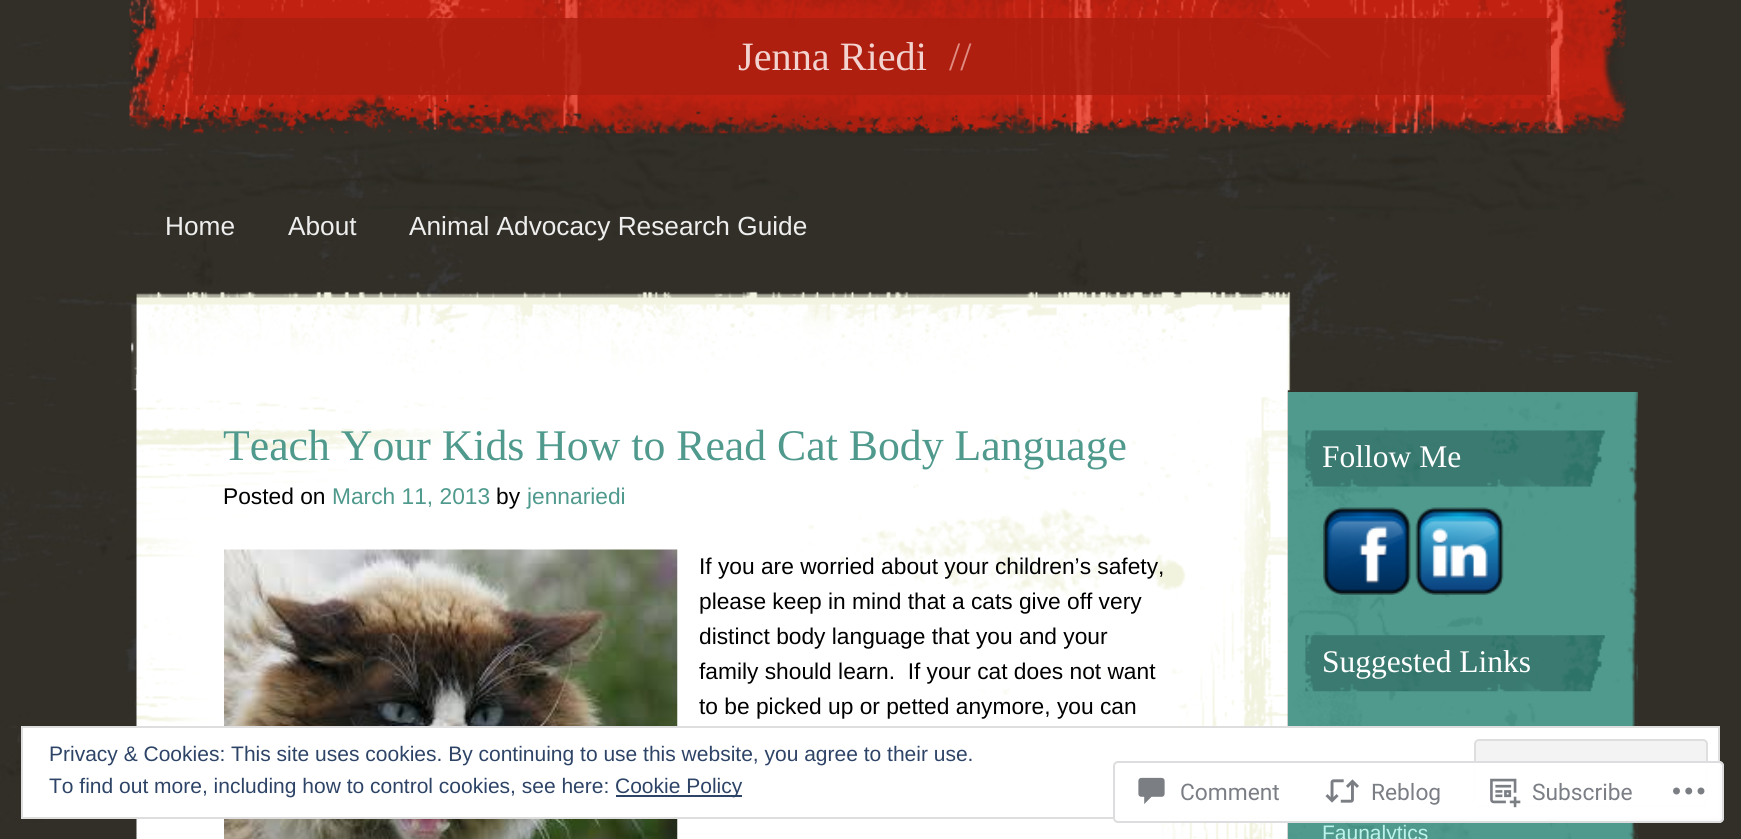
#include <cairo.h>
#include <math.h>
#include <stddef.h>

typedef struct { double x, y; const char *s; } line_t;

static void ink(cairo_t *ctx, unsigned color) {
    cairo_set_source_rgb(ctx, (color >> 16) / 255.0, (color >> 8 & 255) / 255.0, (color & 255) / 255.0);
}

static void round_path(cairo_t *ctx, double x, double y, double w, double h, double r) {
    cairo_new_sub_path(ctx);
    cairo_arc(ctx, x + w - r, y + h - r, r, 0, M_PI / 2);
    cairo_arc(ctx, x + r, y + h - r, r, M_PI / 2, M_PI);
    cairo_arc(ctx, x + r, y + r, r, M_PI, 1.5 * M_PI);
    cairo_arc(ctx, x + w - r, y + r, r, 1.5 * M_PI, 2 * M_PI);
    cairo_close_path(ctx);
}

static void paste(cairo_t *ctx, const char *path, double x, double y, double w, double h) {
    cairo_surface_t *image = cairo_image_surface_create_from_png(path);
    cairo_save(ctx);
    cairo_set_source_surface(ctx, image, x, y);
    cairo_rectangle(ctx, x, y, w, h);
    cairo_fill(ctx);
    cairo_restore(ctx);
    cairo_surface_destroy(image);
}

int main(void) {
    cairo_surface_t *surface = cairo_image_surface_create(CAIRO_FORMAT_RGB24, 1741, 839);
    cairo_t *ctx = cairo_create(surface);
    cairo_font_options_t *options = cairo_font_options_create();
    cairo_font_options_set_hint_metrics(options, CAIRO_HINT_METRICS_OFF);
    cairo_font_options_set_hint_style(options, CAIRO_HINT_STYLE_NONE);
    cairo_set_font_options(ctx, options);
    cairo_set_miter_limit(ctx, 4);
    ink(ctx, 0x322F28);
    cairo_paint(ctx);
    paste(ctx, "media/1.png", 0, 26, 1700, 797);
    paste(ctx, "media/2.png", 129, 0, 1498, 136);
    cairo_set_source_rgba(ctx, 0.667, 0.122, 0.063, 0.8);
    cairo_rectangle(ctx, 193, 18, 1358, 77);
    cairo_fill(ctx);
    cairo_select_font_face(ctx, "Liberation Serif", CAIRO_FONT_SLANT_NORMAL, CAIRO_FONT_WEIGHT_NORMAL);
    cairo_set_font_size(ctx, 40.25);
    ink(ctx, 0xF3D3CF);
    cairo_move_to(ctx, 738, 70);
    cairo_show_text(ctx, "Jenna Riedi");
    ink(ctx, 0xDF8C83);
    cairo_move_to(ctx, 949, 70);
    cairo_show_text(ctx, "//");
    cairo_select_font_face(ctx, "Liberation Sans", CAIRO_FONT_SLANT_NORMAL, CAIRO_FONT_WEIGHT_NORMAL);
    cairo_set_font_size(ctx, 26.25);
    ink(ctx, 0xEEEEEE);
    {
        static const line_t items[] = {
            {165, 235, "Home"},
            {288, 235, "About"},
            {409, 235, "Animal Advocacy Research Guide"},
        };
        for (size_t i = 0; i < sizeof items / sizeof *items; i++) {
            cairo_move_to(ctx, items[i].x, items[i].y);
            cairo_show_text(ctx, items[i].s);
        }
    }
    paste(ctx, "media/3.png", 131, 291, 1160, 100);
    paste(ctx, "media/4.png", 136, 374, 1152, 465);
    cairo_select_font_face(ctx, "Liberation Serif", CAIRO_FONT_SLANT_NORMAL, CAIRO_FONT_WEIGHT_NORMAL);
    cairo_set_font_size(ctx, 43.75);
    ink(ctx, 0x4F998D);
    cairo_move_to(ctx, 223, 460);
    cairo_show_text(ctx, "Teach Your Kids How to Read Cat Body Language");
    cairo_select_font_face(ctx, "Liberation Sans", CAIRO_FONT_SLANT_NORMAL, CAIRO_FONT_WEIGHT_NORMAL);
    cairo_set_font_size(ctx, 22.75);
    ink(ctx, 0x000000);
    cairo_move_to(ctx, 223, 504);
    cairo_show_text(ctx, "Posted on");
    ink(ctx, 0x4F998D);
    cairo_move_to(ctx, 332, 504);
    cairo_show_text(ctx, "March 11, 2013");
    ink(ctx, 0x000000);
    cairo_move_to(ctx, 496, 504);
    cairo_show_text(ctx, "by");
    ink(ctx, 0x4F998D);
    cairo_move_to(ctx, 527, 504);
    cairo_show_text(ctx, "jennariedi");
    paste(ctx, "media/5.png", 224, 549, 454, 290);
    ink(ctx, 0x000000);
    {
        static const line_t items[] = {
            {699, 574, "If you are worried about your children’s safety,"},
            {699, 609, "please keep in mind that a cats give off very"},
            {699, 644, "distinct body language that you and your"},
            {699, 679, "family should learn.  If your cat does not want"},
            {699, 714, "to be picked up or petted anymore, you can"},
        };
        for (size_t i = 0; i < sizeof items / sizeof *items; i++) {
            cairo_move_to(ctx, items[i].x, items[i].y);
            cairo_show_text(ctx, items[i].s);
        }
    }
    paste(ctx, "media/6.png", 1288, 392, 350, 447);
    paste(ctx, "media/7.png", 1305, 430, 300, 57);
    cairo_select_font_face(ctx, "Liberation Serif", CAIRO_FONT_SLANT_NORMAL, CAIRO_FONT_WEIGHT_NORMAL);
    cairo_set_font_size(ctx, 31.5);
    ink(ctx, 0xFFFFFF);
    cairo_move_to(ctx, 1322, 467);
    cairo_show_text(ctx, "Follow Me");
    paste(ctx, "media/8.png", 1323, 507, 88, 88);
    paste(ctx, "media/9.png", 1415, 507, 89, 88);
    paste(ctx, "media/10.png", 1305, 635, 300, 57);
    cairo_move_to(ctx, 1322, 672);
    cairo_show_text(ctx, "Suggested Links");
    cairo_select_font_face(ctx, "Liberation Sans", CAIRO_FONT_SLANT_NORMAL, CAIRO_FONT_WEIGHT_NORMAL);
    cairo_set_font_size(ctx, 21);
    ink(ctx, 0xBCF3EA);
    cairo_move_to(ctx, 1322, 840);
    cairo_show_text(ctx, "Faunalytics");
    ink(ctx, 0xFFFFFF);
    cairo_rectangle(ctx, 22, 727, 1697, 91);
    cairo_fill_preserve(ctx);
    ink(ctx, 0xDEDEDE);
    cairo_stroke(ctx);
    ink(ctx, 0x2E4467);
    cairo_move_to(ctx, 49, 761);
    cairo_show_text(ctx, "Privacy & Cookies: This site uses cookies. By continuing to use this website, you agree to their use.");
    ink(ctx, 0xF3F3F3);
    round_path(ctx, 1475, 740, 232, 66, 4);
    cairo_fill_preserve(ctx);
    ink(ctx, 0xDEDEDE);
    cairo_stroke(ctx);
    ink(ctx, 0x2E4467);
    cairo_move_to(ctx, 49, 793);
    cairo_show_text(ctx, "To find out more, including how to control cookies, see here:");
    cairo_rectangle(ctx, 616, 795, 126, 2);
    cairo_fill(ctx);
    cairo_move_to(ctx, 615, 793);
    cairo_show_text(ctx, "Cookie Policy");
    cairo_set_source_rgba(ctx, 1, 1, 1, 0.98);
    round_path(ctx, 1113, 761, 611, 62, 5);
    cairo_fill(ctx);
    round_path(ctx, 1114, 762, 609, 60, 4);
    cairo_set_source_rgba(ctx, 0.863, 0.863, 0.871, 0.98);
    cairo_stroke(ctx);
    paste(ctx, "media/11.png", 1138, 777, 27, 27);
    cairo_select_font_face(ctx, "Roboto", CAIRO_FONT_SLANT_NORMAL, CAIRO_FONT_WEIGHT_NORMAL);
    cairo_set_font_size(ctx, 22.75);
    ink(ctx, 0x7B7F85);
    cairo_move_to(ctx, 1180, 800);
    cairo_show_text(ctx, "Comment");
    paste(ctx, "media/12.png", 1325, 779, 34, 24);
    cairo_move_to(ctx, 1371, 800);
    cairo_show_text(ctx, "Reblog");
    paste(ctx, "media/13.png", 1490, 778, 31, 30);
    cairo_move_to(ctx, 1532, 800);
    cairo_show_text(ctx, "Subscribe");
    paste(ctx, "media/14.png", 1673, 787, 32, 8);
    cairo_surface_write_to_png(surface, "image.png");
    cairo_font_options_destroy(options);
    cairo_destroy(ctx);
    cairo_surface_destroy(surface);
    return 0;
}
